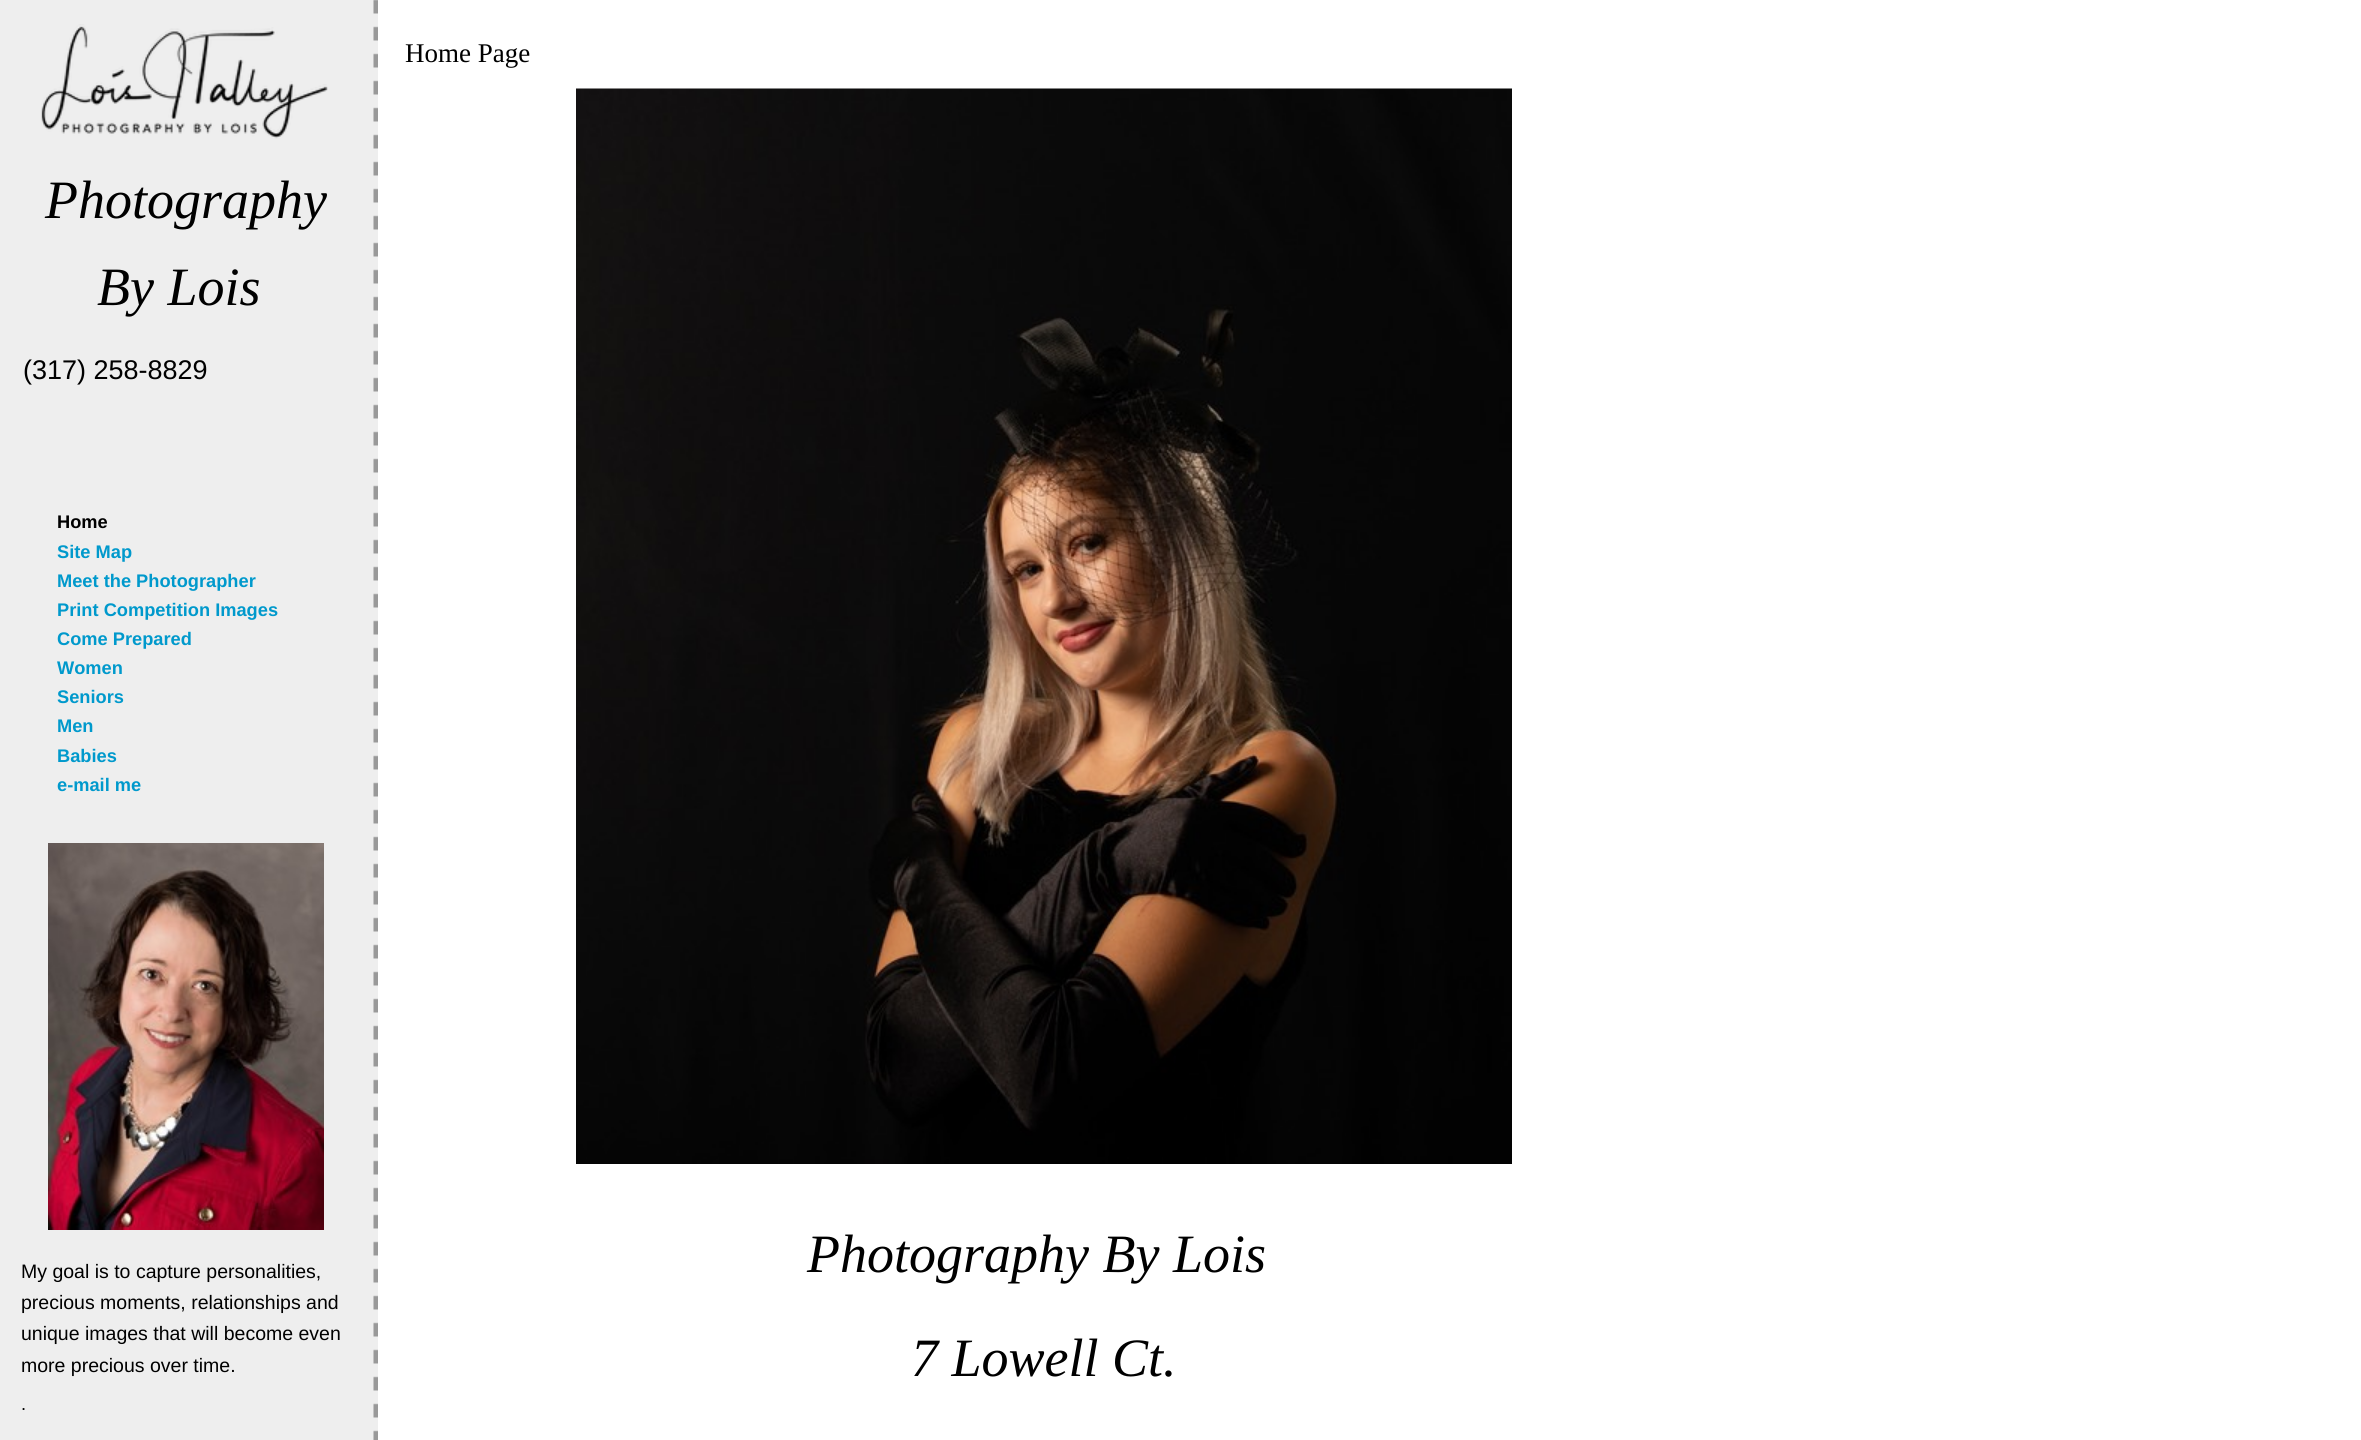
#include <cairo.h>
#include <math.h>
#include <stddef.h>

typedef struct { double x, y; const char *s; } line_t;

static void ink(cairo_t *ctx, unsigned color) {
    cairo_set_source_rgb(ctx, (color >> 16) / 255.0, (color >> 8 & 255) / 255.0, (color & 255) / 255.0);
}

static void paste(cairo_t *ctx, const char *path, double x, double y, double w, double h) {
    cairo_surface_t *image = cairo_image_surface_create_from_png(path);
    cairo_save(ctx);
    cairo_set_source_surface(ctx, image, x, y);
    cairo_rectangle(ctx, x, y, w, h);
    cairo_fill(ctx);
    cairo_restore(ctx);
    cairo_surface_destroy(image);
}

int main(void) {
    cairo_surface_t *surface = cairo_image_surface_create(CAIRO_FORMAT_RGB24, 2361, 1440);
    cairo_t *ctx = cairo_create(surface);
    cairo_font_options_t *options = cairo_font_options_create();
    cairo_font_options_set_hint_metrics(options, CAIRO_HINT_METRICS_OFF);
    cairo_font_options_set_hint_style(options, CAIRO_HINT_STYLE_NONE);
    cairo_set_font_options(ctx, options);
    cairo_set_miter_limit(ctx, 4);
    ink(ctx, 0xFFFFFF);
    cairo_paint(ctx);
    paste(ctx, "media/1.png", 0, 0, 378, 1440);
    paste(ctx, "media/2.png", 48, 843, 276, 387);
    cairo_select_font_face(ctx, "Liberation Sans", CAIRO_FONT_SLANT_NORMAL, CAIRO_FONT_WEIGHT_NORMAL);
    cairo_set_font_size(ctx, 19.5);
    ink(ctx, 0x000000);
    {
        static const line_t items[] = {
            {21, 1278, "My goal is to capture personalities,"},
            {21, 1309, "precious moments, relationships and"},
            {21, 1340, "unique images that will become even"},
            {21, 1372, "more precious over time."},
        };
        for (size_t i = 0; i < sizeof items / sizeof *items; i++) {
            cairo_move_to(ctx, items[i].x, items[i].y);
            cairo_show_text(ctx, items[i].s);
        }
    }
    cairo_set_font_size(ctx, 18.25);
    cairo_move_to(ctx, 21, 1410);
    cairo_show_text(ctx, ".");
    cairo_select_font_face(ctx, "Liberation Serif", CAIRO_FONT_SLANT_NORMAL, CAIRO_FONT_WEIGHT_NORMAL);
    cairo_set_font_size(ctx, 27);
    cairo_move_to(ctx, 405, 62);
    cairo_show_text(ctx, "Home Page");
    paste(ctx, "media/3.png", 576, 88, 936, 1076);
    cairo_select_font_face(ctx, "Liberation Serif", CAIRO_FONT_SLANT_ITALIC, CAIRO_FONT_WEIGHT_NORMAL);
    cairo_set_font_size(ctx, 54);
    cairo_move_to(ctx, 807, 1272);
    cairo_show_text(ctx, "Photography By Lois");
    cairo_move_to(ctx, 911, 1376);
    cairo_show_text(ctx, "7 Lowell Ct.");
    paste(ctx, "media/4.png", 41, 24, 287, 115);
    cairo_move_to(ctx, 45, 218);
    cairo_show_text(ctx, "Photography");
    cairo_move_to(ctx, 97, 305);
    cairo_show_text(ctx, "By Lois");
    cairo_select_font_face(ctx, "Liberation Sans", CAIRO_FONT_SLANT_NORMAL, CAIRO_FONT_WEIGHT_NORMAL);
    cairo_set_font_size(ctx, 27);
    cairo_move_to(ctx, 23, 379);
    cairo_show_text(ctx, "(317) 258-8829");
    cairo_select_font_face(ctx, "Liberation Sans", CAIRO_FONT_SLANT_NORMAL, CAIRO_FONT_WEIGHT_BOLD);
    cairo_set_font_size(ctx, 18.25);
    cairo_move_to(ctx, 57, 528);
    cairo_show_text(ctx, "Home");
    ink(ctx, 0x0099CC);
    {
        static const line_t items[] = {
            {57, 558, "Site Map"},
            {57, 587, "Meet the Photographer"},
            {57, 616, "Print Competition Images"},
            {57, 645, "Come Prepared"},
            {57, 674, "Women"},
            {57, 703, "Seniors"},
            {57, 732, "Men"},
            {57, 762, "Babies"},
            {57, 791, "e-mail me"},
        };
        for (size_t i = 0; i < sizeof items / sizeof *items; i++) {
            cairo_move_to(ctx, items[i].x, items[i].y);
            cairo_show_text(ctx, items[i].s);
        }
    }
    cairo_surface_write_to_png(surface, "image.png");
    cairo_font_options_destroy(options);
    cairo_destroy(ctx);
    cairo_surface_destroy(surface);
    return 0;
}
